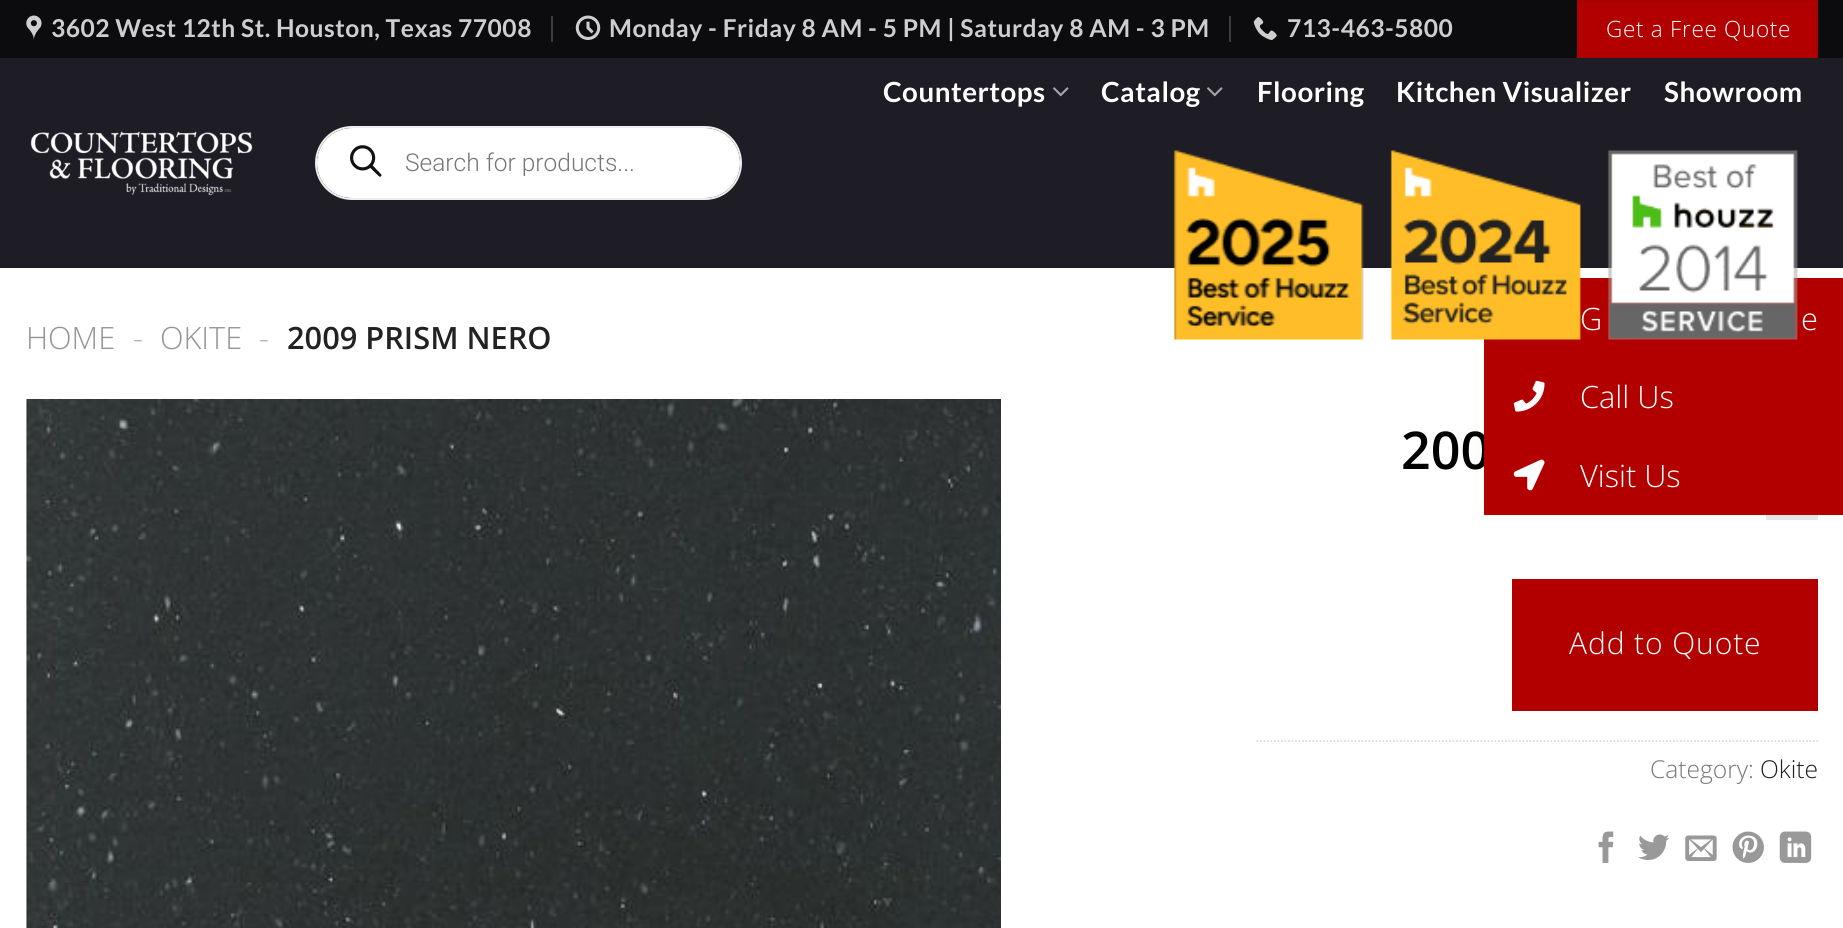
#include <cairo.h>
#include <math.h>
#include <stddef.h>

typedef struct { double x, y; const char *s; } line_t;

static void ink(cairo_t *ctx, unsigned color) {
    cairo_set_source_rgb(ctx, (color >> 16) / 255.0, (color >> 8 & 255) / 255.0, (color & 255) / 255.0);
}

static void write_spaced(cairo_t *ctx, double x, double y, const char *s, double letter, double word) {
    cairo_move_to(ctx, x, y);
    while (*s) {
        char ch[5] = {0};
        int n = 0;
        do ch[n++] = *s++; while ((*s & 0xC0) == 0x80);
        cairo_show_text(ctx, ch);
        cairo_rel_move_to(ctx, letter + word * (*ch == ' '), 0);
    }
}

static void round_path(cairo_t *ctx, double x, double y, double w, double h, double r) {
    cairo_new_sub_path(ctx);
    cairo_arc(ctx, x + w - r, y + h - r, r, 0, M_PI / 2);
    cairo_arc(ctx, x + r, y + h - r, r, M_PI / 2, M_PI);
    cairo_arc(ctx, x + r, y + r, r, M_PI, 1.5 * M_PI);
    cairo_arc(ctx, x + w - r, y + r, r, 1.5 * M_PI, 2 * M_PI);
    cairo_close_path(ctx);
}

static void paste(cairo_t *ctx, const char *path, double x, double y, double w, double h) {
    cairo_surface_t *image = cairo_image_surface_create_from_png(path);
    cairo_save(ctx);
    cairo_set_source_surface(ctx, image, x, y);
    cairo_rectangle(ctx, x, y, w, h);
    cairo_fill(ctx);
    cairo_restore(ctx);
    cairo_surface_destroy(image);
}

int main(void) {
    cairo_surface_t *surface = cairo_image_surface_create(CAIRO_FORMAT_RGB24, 1843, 928);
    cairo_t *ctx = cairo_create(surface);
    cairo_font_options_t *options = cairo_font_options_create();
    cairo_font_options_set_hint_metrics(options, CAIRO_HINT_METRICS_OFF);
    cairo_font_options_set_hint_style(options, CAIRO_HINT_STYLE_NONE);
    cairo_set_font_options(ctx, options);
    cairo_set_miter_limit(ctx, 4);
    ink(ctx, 0xFFFFFF);
    cairo_paint(ctx);
    ink(ctx, 0x0C0C0F);
    cairo_rectangle(ctx, 0, 0, 1843, 58);
    cairo_fill(ctx);
    paste(ctx, "media/1.png", 26, 15, 16, 25);
    cairo_select_font_face(ctx, "Lato", CAIRO_FONT_SLANT_NORMAL, CAIRO_FONT_WEIGHT_BOLD);
    cairo_set_font_size(ctx, 24.6);
    ink(ctx, 0xCECECF);
    write_spaced(ctx, 51, 37, "3602 West 12th St. Houston, Texas 77008", 0.5, 0);
    ink(ctx, 0x3D3D3F);
    cairo_rectangle(ctx, 551, 16, 2, 26);
    cairo_fill(ctx);
    paste(ctx, "media/2.png", 575, 15, 26, 25);
    ink(ctx, 0xCECECF);
    write_spaced(ctx, 609, 37, "Monday - Friday 8 AM - 5 PM | Saturday 8 AM - 3 PM", 0.5, 0);
    ink(ctx, 0x3D3D3F);
    cairo_rectangle(ctx, 1229, 16, 2, 26);
    cairo_fill(ctx);
    paste(ctx, "media/3.png", 1253, 17, 24, 23);
    ink(ctx, 0xCECECF);
    write_spaced(ctx, 1287, 37, "713-463-5800", 0.5, 0);
    ink(ctx, 0xB20000);
    cairo_rectangle(ctx, 1578, 1, 239, 56);
    cairo_fill_preserve(ctx);
    ink(ctx, 0xA90000);
    cairo_stroke(ctx);
    cairo_select_font_face(ctx, "Open Sans Light", CAIRO_FONT_SLANT_NORMAL, CAIRO_FONT_WEIGHT_NORMAL);
    cairo_set_font_size(ctx, 22.5);
    ink(ctx, 0xFFFFFF);
    write_spaced(ctx, 1606, 37, "Get a Free Quote", 0.7, 0);
    ink(ctx, 0x1E1D25);
    cairo_rectangle(ctx, 0, 58, 1843, 210);
    cairo_fill(ctx);
    cairo_select_font_face(ctx, "Lato", CAIRO_FONT_SLANT_NORMAL, CAIRO_FONT_WEIGHT_BOLD);
    cairo_set_font_size(ctx, 27.75);
    ink(ctx, 0xFFFFFF);
    write_spaced(ctx, 883, 102, "Countertops", 0.5, 0);
    paste(ctx, "media/4.png", 1053, 87, 16, 10);
    write_spaced(ctx, 1101, 102, "Catalog", 0.5, 0);
    paste(ctx, "media/4.png", 1207, 87, 16, 10);
    {
        static const line_t items[] = {
            {1257, 102, "Flooring"},
            {1396, 102, "Kitchen Visualizer"},
            {1664, 102, "Showroom"},
        };
        for (size_t i = 0; i < sizeof items / sizeof *items; i++) {
            write_spaced(ctx, items[i].x, items[i].y, items[i].s, 0.5, 0);
        }
    }
    cairo_select_font_face(ctx, "Open Sans SemiBold", CAIRO_FONT_SLANT_NORMAL, CAIRO_FONT_WEIGHT_NORMAL);
    cairo_set_font_size(ctx, 52);
    ink(ctx, 0x000000);
    cairo_move_to(ctx, 1401, 469);
    cairo_show_text(ctx, "200");
    ink(ctx, 0xB20000);
    cairo_rectangle(ctx, 1484, 278, 359, 237);
    cairo_fill(ctx);
    cairo_select_font_face(ctx, "Open Sans Light", CAIRO_FONT_SLANT_NORMAL, CAIRO_FONT_WEIGHT_NORMAL);
    cairo_set_font_size(ctx, 30.75);
    ink(ctx, 0xFFFFFF);
    cairo_move_to(ctx, 1580, 330);
    cairo_show_text(ctx, "G");
    paste(ctx, "media/5.png", 1173, 150, 625, 190);
    paste(ctx, "media/6.png", 30, 131, 223, 65);
    round_path(ctx, 316, 127, 425, 72, 36);
    ink(ctx, 0xEEEEEE);
    cairo_stroke(ctx);
    ink(ctx, 0xFFFFFF);
    round_path(ctx, 317, 128, 423, 70, 35);
    cairo_fill(ctx);
    paste(ctx, "media/7.png", 350, 145, 32, 32);
    cairo_select_font_face(ctx, "Roboto Light", CAIRO_FONT_SLANT_NORMAL, CAIRO_FONT_WEIGHT_NORMAL);
    cairo_set_font_size(ctx, 24.5);
    ink(ctx, 0x777777);
    cairo_move_to(ctx, 405, 171);
    cairo_show_text(ctx, "Search for products...");
    cairo_select_font_face(ctx, "Open Sans Light", CAIRO_FONT_SLANT_NORMAL, CAIRO_FONT_WEIGHT_NORMAL);
    cairo_set_font_size(ctx, 30.75);
    ink(ctx, 0x949494);
    cairo_move_to(ctx, 26, 349);
    cairo_show_text(ctx, "HOME");
    ink(ctx, 0xB2B2B2);
    cairo_move_to(ctx, 133, 349);
    cairo_show_text(ctx, "-");
    ink(ctx, 0x949494);
    cairo_move_to(ctx, 160, 349);
    cairo_show_text(ctx, "OKITE");
    ink(ctx, 0xB2B2B2);
    cairo_move_to(ctx, 259, 349);
    cairo_show_text(ctx, "-");
    cairo_select_font_face(ctx, "Open Sans SemiBold", CAIRO_FONT_SLANT_NORMAL, CAIRO_FONT_WEIGHT_NORMAL);
    ink(ctx, 0x222222);
    cairo_move_to(ctx, 287, 349);
    cairo_show_text(ctx, "2009 PRISM NERO");
    paste(ctx, "media/8.png", 26, 399, 975, 529);
    ink(ctx, 0xE6E6E6);
    cairo_rectangle(ctx, 1766, 515, 52, 5);
    cairo_fill(ctx);
    ink(ctx, 0xB20000);
    cairo_rectangle(ctx, 1512, 579, 306, 132);
    cairo_fill(ctx);
    cairo_select_font_face(ctx, "Open Sans Light", CAIRO_FONT_SLANT_NORMAL, CAIRO_FONT_WEIGHT_NORMAL);
    cairo_set_font_size(ctx, 30);
    ink(ctx, 0xFFFFFF);
    write_spaced(ctx, 1569, 654, "Add to Quote", 0.9, 0);
    cairo_new_path(ctx);
    cairo_move_to(ctx, 1256.5, 741);
    cairo_line_to(ctx, 1818, 741);
    ink(ctx, 0xDDDDDD);
    cairo_set_line_width(ctx, 1.8);
    cairo_set_dash(ctx, (double[]){1.75, 1.75}, 2, 0);
    cairo_stroke(ctx);
    cairo_set_font_size(ctx, 24.6);
    ink(ctx, 0x777777);
    cairo_move_to(ctx, 1650, 778);
    cairo_show_text(ctx, "Category:");
    ink(ctx, 0x1E1C25);
    cairo_move_to(ctx, 1760, 778);
    cairo_show_text(ctx, "Okite");
    paste(ctx, "media/9.png", 1598, 831, 16, 32);
    paste(ctx, "media/10.png", 1638, 834, 32, 26);
    paste(ctx, "media/11.png", 1685, 835, 32, 26);
    paste(ctx, "media/12.png", 1732, 831, 32, 32);
    paste(ctx, "media/13.png", 1779, 831, 33, 32);
    cairo_set_font_size(ctx, 30.75);
    ink(ctx, 0xFFFFFF);
    cairo_move_to(ctx, 1801, 330);
    cairo_show_text(ctx, "e");
    paste(ctx, "media/14.png", 1513, 380, 32, 32);
    cairo_move_to(ctx, 1580, 408);
    cairo_show_text(ctx, "Call Us");
    paste(ctx, "media/15.png", 1513, 459, 32, 32);
    cairo_move_to(ctx, 1580, 487);
    cairo_show_text(ctx, "Visit Us");
    cairo_surface_write_to_png(surface, "image.png");
    cairo_font_options_destroy(options);
    cairo_destroy(ctx);
    cairo_surface_destroy(surface);
    return 0;
}
